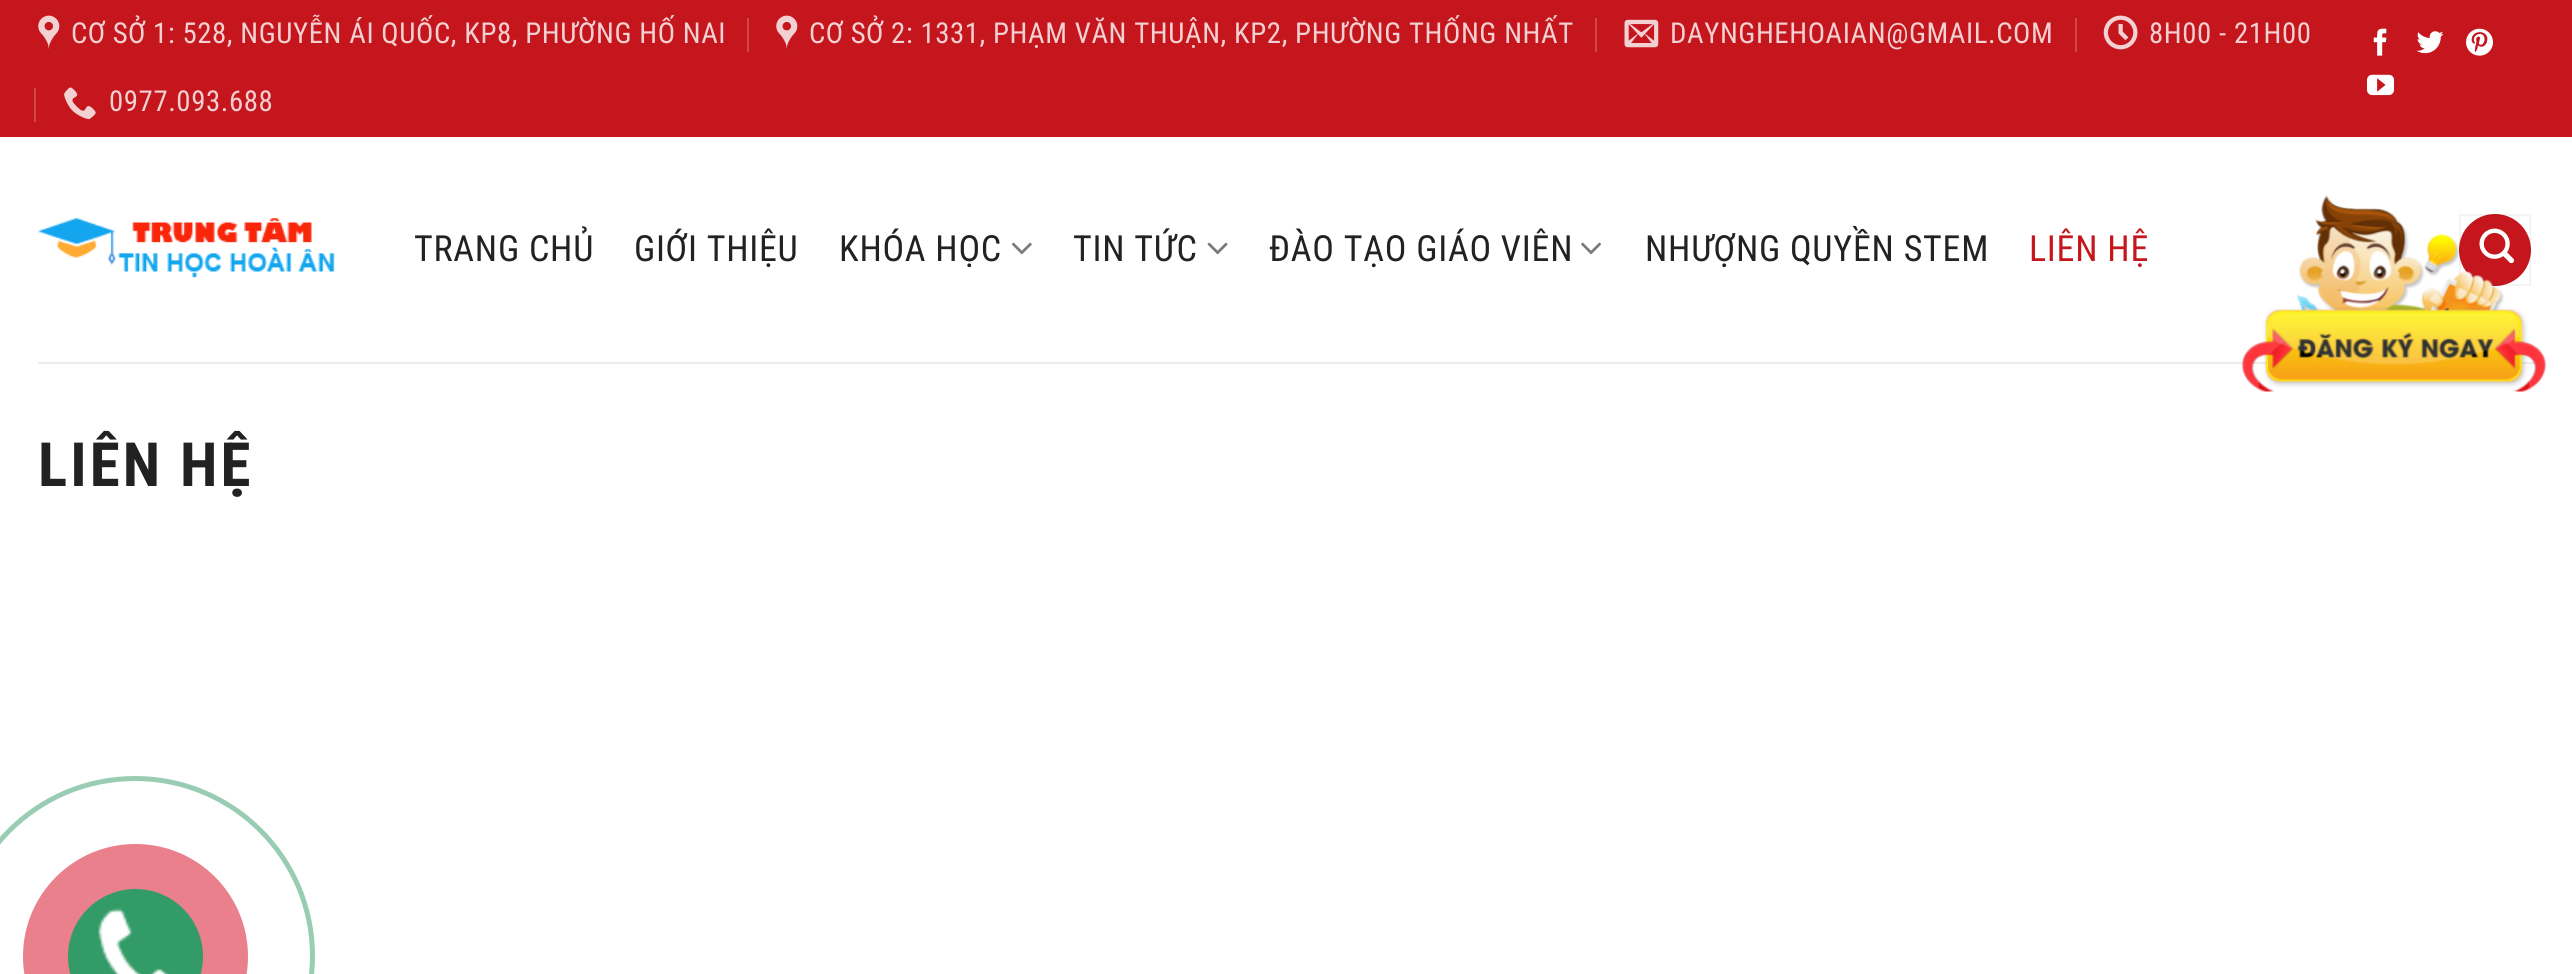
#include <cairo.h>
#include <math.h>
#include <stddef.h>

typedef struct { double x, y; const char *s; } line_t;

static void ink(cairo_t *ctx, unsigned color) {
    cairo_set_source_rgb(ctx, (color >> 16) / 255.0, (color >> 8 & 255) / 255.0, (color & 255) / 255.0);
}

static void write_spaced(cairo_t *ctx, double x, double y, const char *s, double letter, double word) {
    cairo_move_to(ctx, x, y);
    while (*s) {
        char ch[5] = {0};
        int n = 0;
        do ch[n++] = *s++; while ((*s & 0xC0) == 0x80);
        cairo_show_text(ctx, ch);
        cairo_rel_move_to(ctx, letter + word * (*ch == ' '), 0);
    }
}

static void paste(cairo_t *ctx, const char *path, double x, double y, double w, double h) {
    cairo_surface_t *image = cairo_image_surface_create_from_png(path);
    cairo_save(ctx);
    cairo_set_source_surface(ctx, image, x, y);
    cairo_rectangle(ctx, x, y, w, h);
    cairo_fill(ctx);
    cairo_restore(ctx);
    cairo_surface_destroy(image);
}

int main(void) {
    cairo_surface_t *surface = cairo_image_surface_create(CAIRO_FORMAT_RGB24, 2572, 974);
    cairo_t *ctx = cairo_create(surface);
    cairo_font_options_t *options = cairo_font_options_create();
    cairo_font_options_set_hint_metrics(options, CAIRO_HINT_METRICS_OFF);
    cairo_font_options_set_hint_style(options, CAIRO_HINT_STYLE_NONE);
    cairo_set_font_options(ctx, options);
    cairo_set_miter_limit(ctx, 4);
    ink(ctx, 0xFFFFFF);
    cairo_paint(ctx);
    ink(ctx, 0xC4161C);
    cairo_rectangle(ctx, 0, 0, 2572, 137);
    cairo_fill(ctx);
    paste(ctx, "media/1.png", 38, 15, 22, 34);
    cairo_select_font_face(ctx, "Roboto Condensed", CAIRO_FONT_SLANT_NORMAL, CAIRO_FONT_WEIGHT_NORMAL);
    cairo_set_font_size(ctx, 28.8);
    ink(ctx, 0xF3D0D2);
    write_spaced(ctx, 71, 43, "CƠ SỞ 1: 528, NGUYỄN ÁI QUỐC, KP8, PHƯỜNG HỐ NAI", 0.58, 0);
    ink(ctx, 0xD04549);
    cairo_rectangle(ctx, 747, 18, 2, 34);
    cairo_fill(ctx);
    paste(ctx, "media/1.png", 776, 15, 22, 34);
    ink(ctx, 0xF3D0D2);
    write_spaced(ctx, 809, 43, "CƠ SỞ 2: 1331, PHẠM VĂN THUẬN, KP2, PHƯỜNG THỐNG NHẤT", 0.58, 0);
    ink(ctx, 0xD04549);
    cairo_rectangle(ctx, 1595, 18, 2, 34);
    cairo_fill(ctx);
    paste(ctx, "media/2.png", 1624, 19, 35, 29);
    ink(ctx, 0xF3D0D2);
    write_spaced(ctx, 1670, 43, "DAYNGHEHOAIAN@GMAIL.COM", 0.58, 0);
    ink(ctx, 0xD04549);
    cairo_rectangle(ctx, 2075, 18, 2, 34);
    cairo_fill(ctx);
    paste(ctx, "media/3.png", 2103, 15, 35, 35);
    ink(ctx, 0xF3D0D2);
    write_spaced(ctx, 2149, 43, "8H00 - 21H00", 0.58, 0);
    ink(ctx, 0xD04549);
    cairo_rectangle(ctx, 34, 88, 2, 34);
    cairo_fill(ctx);
    paste(ctx, "media/4.png", 64, 87, 32, 33);
    ink(ctx, 0xF3D0D2);
    write_spaced(ctx, 109, 111, "0977.093.688", 0.58, 0);
    paste(ctx, "media/5.png", 2373, 28, 14, 28);
    paste(ctx, "media/6.png", 2416, 31, 28, 23);
    paste(ctx, "media/7.png", 2466, 28, 27, 28);
    paste(ctx, "media/8.png", 2367, 74, 27, 22);
    paste(ctx, "media/9.png", 38, 218, 297, 60);
    cairo_set_font_size(ctx, 36);
    ink(ctx, 0x222222);
    {
        static const line_t items[] = {
            {414, 261, "TRANG CHỦ"},
            {634, 261, "GIỚI THIỆU"},
            {839, 261, "KHÓA HỌC"},
        };
        for (size_t i = 0; i < sizeof items / sizeof *items; i++) {
            write_spaced(ctx, items[i].x, items[i].y, items[i].s, 0.75, 0);
        }
    }
    paste(ctx, "media/10.png", 1011, 242, 21, 13);
    write_spaced(ctx, 1073, 261, "TIN TỨC", 0.75, 0);
    paste(ctx, "media/11.png", 1207, 242, 21, 13);
    write_spaced(ctx, 1269, 261, "ĐÀO TẠO GIÁO VIÊN", 0.75, 0);
    paste(ctx, "media/12.png", 1581, 242, 20, 13);
    write_spaced(ctx, 1645, 261, "NHƯỢNG QUYỀN STEM", 0.75, 0);
    ink(ctx, 0xC4161C);
    write_spaced(ctx, 2029, 261, "LIÊN HỆ", 0.75, 0);
    cairo_new_path(ctx);
    cairo_arc(ctx, 2495, 250, 36, 0, 2 * M_PI);
    cairo_fill(ctx);
    cairo_rectangle(ctx, 2460, 215, 70, 70);
    cairo_set_source_rgba(ctx, 0, 0, 0, 0.05);
    cairo_stroke(ctx);
    paste(ctx, "media/13.png", 2479, 228, 35, 36);
    ink(ctx, 0xECECEC);
    cairo_rectangle(ctx, 38, 362, 2498, 2);
    cairo_fill(ctx);
    cairo_select_font_face(ctx, "Roboto Condensed", CAIRO_FONT_SLANT_NORMAL, CAIRO_FONT_WEIGHT_BOLD);
    cairo_set_font_size(ctx, 61);
    ink(ctx, 0x222222);
    write_spaced(ctx, 38, 486, "LIÊN HỆ", 3, 0);
    paste(ctx, "media/14.png", 2241, 195, 306, 197);
    cairo_arc(ctx, 135, 956, 177.5, 0, 2 * M_PI);
    ink(ctx, 0x99CDB3);
    cairo_set_line_width(ctx, 5);
    cairo_stroke(ctx);
    ink(ctx, 0xE9808C);
    cairo_arc(ctx, 135.5, 956.5, 112.5, 0, 2 * M_PI);
    cairo_fill(ctx);
    ink(ctx, 0x339B67);
    cairo_arc(ctx, 135.5, 956.5, 67.5, 0, 2 * M_PI);
    cairo_fill(ctx);
    paste(ctx, "media/15.png", 98, 908, 71, 66);
    cairo_surface_write_to_png(surface, "image.png");
    cairo_font_options_destroy(options);
    cairo_destroy(ctx);
    cairo_surface_destroy(surface);
    return 0;
}
